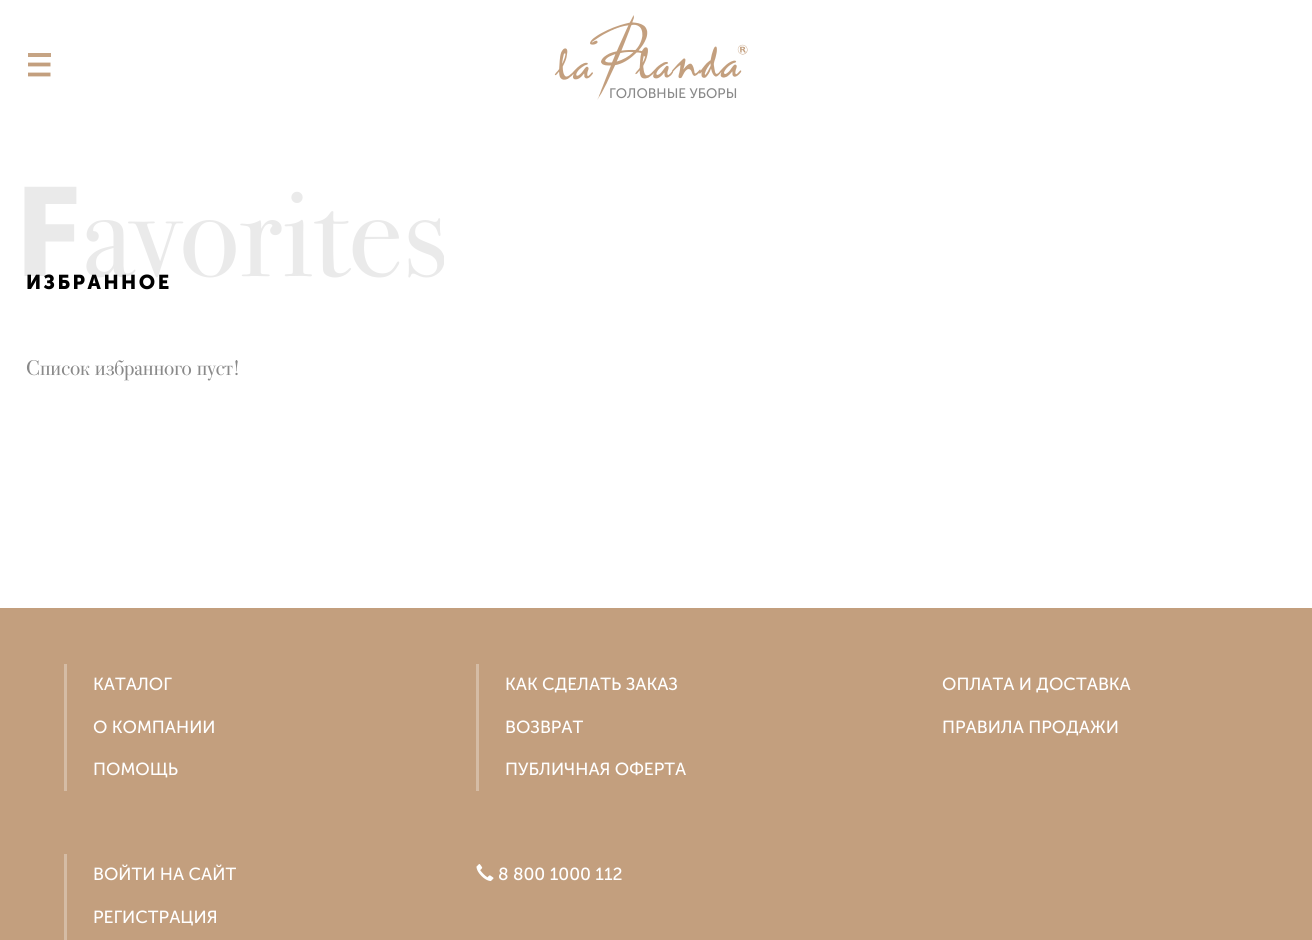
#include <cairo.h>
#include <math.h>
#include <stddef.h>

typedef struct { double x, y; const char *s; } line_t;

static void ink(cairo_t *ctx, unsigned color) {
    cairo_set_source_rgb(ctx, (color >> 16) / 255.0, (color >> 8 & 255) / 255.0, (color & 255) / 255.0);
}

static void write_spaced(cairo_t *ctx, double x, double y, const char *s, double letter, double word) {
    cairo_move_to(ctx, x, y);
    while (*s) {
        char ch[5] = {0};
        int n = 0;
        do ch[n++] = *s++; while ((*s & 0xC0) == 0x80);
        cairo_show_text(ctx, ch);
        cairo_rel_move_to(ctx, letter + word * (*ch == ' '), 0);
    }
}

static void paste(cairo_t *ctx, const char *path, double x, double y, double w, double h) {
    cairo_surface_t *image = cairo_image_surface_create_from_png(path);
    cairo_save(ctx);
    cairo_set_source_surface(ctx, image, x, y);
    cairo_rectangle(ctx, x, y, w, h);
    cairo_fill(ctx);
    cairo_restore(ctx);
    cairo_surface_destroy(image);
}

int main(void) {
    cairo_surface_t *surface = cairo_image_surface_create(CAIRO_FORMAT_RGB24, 1312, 940);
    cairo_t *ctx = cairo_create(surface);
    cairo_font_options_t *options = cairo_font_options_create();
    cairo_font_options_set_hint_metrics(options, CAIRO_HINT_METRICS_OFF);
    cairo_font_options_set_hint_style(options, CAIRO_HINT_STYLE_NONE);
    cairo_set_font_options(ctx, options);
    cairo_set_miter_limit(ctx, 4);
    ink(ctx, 0xFFFFFF);
    cairo_paint(ctx);
    ink(ctx, 0xC6A484);
    cairo_rectangle(ctx, 28, 53, 23, 4);
    cairo_fill(ctx);
    cairo_new_path(ctx);
    cairo_move_to(ctx, 28, 64.5);
    cairo_line_to(ctx, 50.5, 64.5);
    cairo_move_to(ctx, 28, 74.5);
    cairo_line_to(ctx, 50.5, 74.5);
    ink(ctx, 0xC39F7E);
    cairo_set_line_width(ctx, 3.8);
    cairo_stroke(ctx);
    cairo_select_font_face(ctx, "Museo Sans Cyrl", CAIRO_FONT_SLANT_NORMAL, CAIRO_FONT_WEIGHT_NORMAL);
    cairo_set_font_size(ctx, 13.75);
    ink(ctx, 0x898989);
    cairo_move_to(ctx, 609, 98);
    cairo_show_text(ctx, "ГОЛОВНЫЕ УБОРЫ");
    paste(ctx, "media/1.png", 554, 15, 194, 85);
    cairo_select_font_face(ctx, "Noto Sans ExtraBold", CAIRO_FONT_SLANT_NORMAL, CAIRO_FONT_WEIGHT_NORMAL);
    cairo_set_font_size(ctx, 125);
    ink(ctx, 0xEAEAEA);
    cairo_move_to(ctx, 14, 276);
    cairo_show_text(ctx, "F");
    cairo_select_font_face(ctx, "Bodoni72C", CAIRO_FONT_SLANT_NORMAL, CAIRO_FONT_WEIGHT_NORMAL);
    cairo_move_to(ctx, 82, 276);
    cairo_show_text(ctx, "avorites");
    cairo_select_font_face(ctx, "Museo Sans Cyrl", CAIRO_FONT_SLANT_NORMAL, CAIRO_FONT_WEIGHT_BOLD);
    cairo_set_font_size(ctx, 20);
    ink(ctx, 0x000000);
    write_spaced(ctx, 26, 289, "ИЗБРАННОЕ", 2.5, 0);
    cairo_select_font_face(ctx, "Bodoni72C", CAIRO_FONT_SLANT_NORMAL, CAIRO_FONT_WEIGHT_NORMAL);
    cairo_set_font_size(ctx, 21.25);
    ink(ctx, 0x898989);
    cairo_move_to(ctx, 26, 375);
    cairo_show_text(ctx, "Список избранного пуст!");
    ink(ctx, 0xC39F7E);
    cairo_rectangle(ctx, 0, 608, 1312, 332);
    cairo_fill(ctx);
    ink(ctx, 0xD5BCA5);
    cairo_rectangle(ctx, 64, 664, 3, 127);
    cairo_fill(ctx);
    cairo_select_font_face(ctx, "Museo Sans Cyrl", CAIRO_FONT_SLANT_NORMAL, CAIRO_FONT_WEIGHT_NORMAL);
    cairo_set_font_size(ctx, 17.5);
    ink(ctx, 0xFFFFFF);
    {
        static const line_t items[] = {
            {93, 690, "КАТАЛОГ"},
            {93, 733, "О КОМПАНИИ"},
            {93, 775, "ПОМОЩЬ"},
        };
        for (size_t i = 0; i < sizeof items / sizeof *items; i++) {
            cairo_move_to(ctx, items[i].x, items[i].y);
            cairo_show_text(ctx, items[i].s);
        }
    }
    ink(ctx, 0xD5BCA5);
    cairo_rectangle(ctx, 476, 664, 3, 127);
    cairo_fill(ctx);
    ink(ctx, 0xFFFFFF);
    {
        static const line_t items[] = {
            {505, 690, "КАК СДЕЛАТЬ ЗАКАЗ"},
            {942, 690, "ОПЛАТА И ДОСТАВКА"},
            {505, 733, "ВОЗВРАТ"},
            {942, 733, "ПРАВИЛА ПРОДАЖИ"},
            {505, 775, "ПУБЛИЧНАЯ ОФЕРТА"},
        };
        for (size_t i = 0; i < sizeof items / sizeof *items; i++) {
            cairo_move_to(ctx, items[i].x, items[i].y);
            cairo_show_text(ctx, items[i].s);
        }
    }
    ink(ctx, 0xD5BCA5);
    cairo_rectangle(ctx, 64, 854, 3, 86);
    cairo_fill(ctx);
    ink(ctx, 0xFFFFFF);
    cairo_move_to(ctx, 93, 880);
    cairo_show_text(ctx, "ВОЙТИ НА САЙТ");
    cairo_move_to(ctx, 93, 923);
    cairo_show_text(ctx, "РЕГИСТРАЦИЯ");
    paste(ctx, "media/2.png", 476, 864, 18, 17);
    cairo_move_to(ctx, 498, 880);
    cairo_show_text(ctx, "8 800 1000 112");
    cairo_surface_write_to_png(surface, "image.png");
    cairo_font_options_destroy(options);
    cairo_destroy(ctx);
    cairo_surface_destroy(surface);
    return 0;
}
